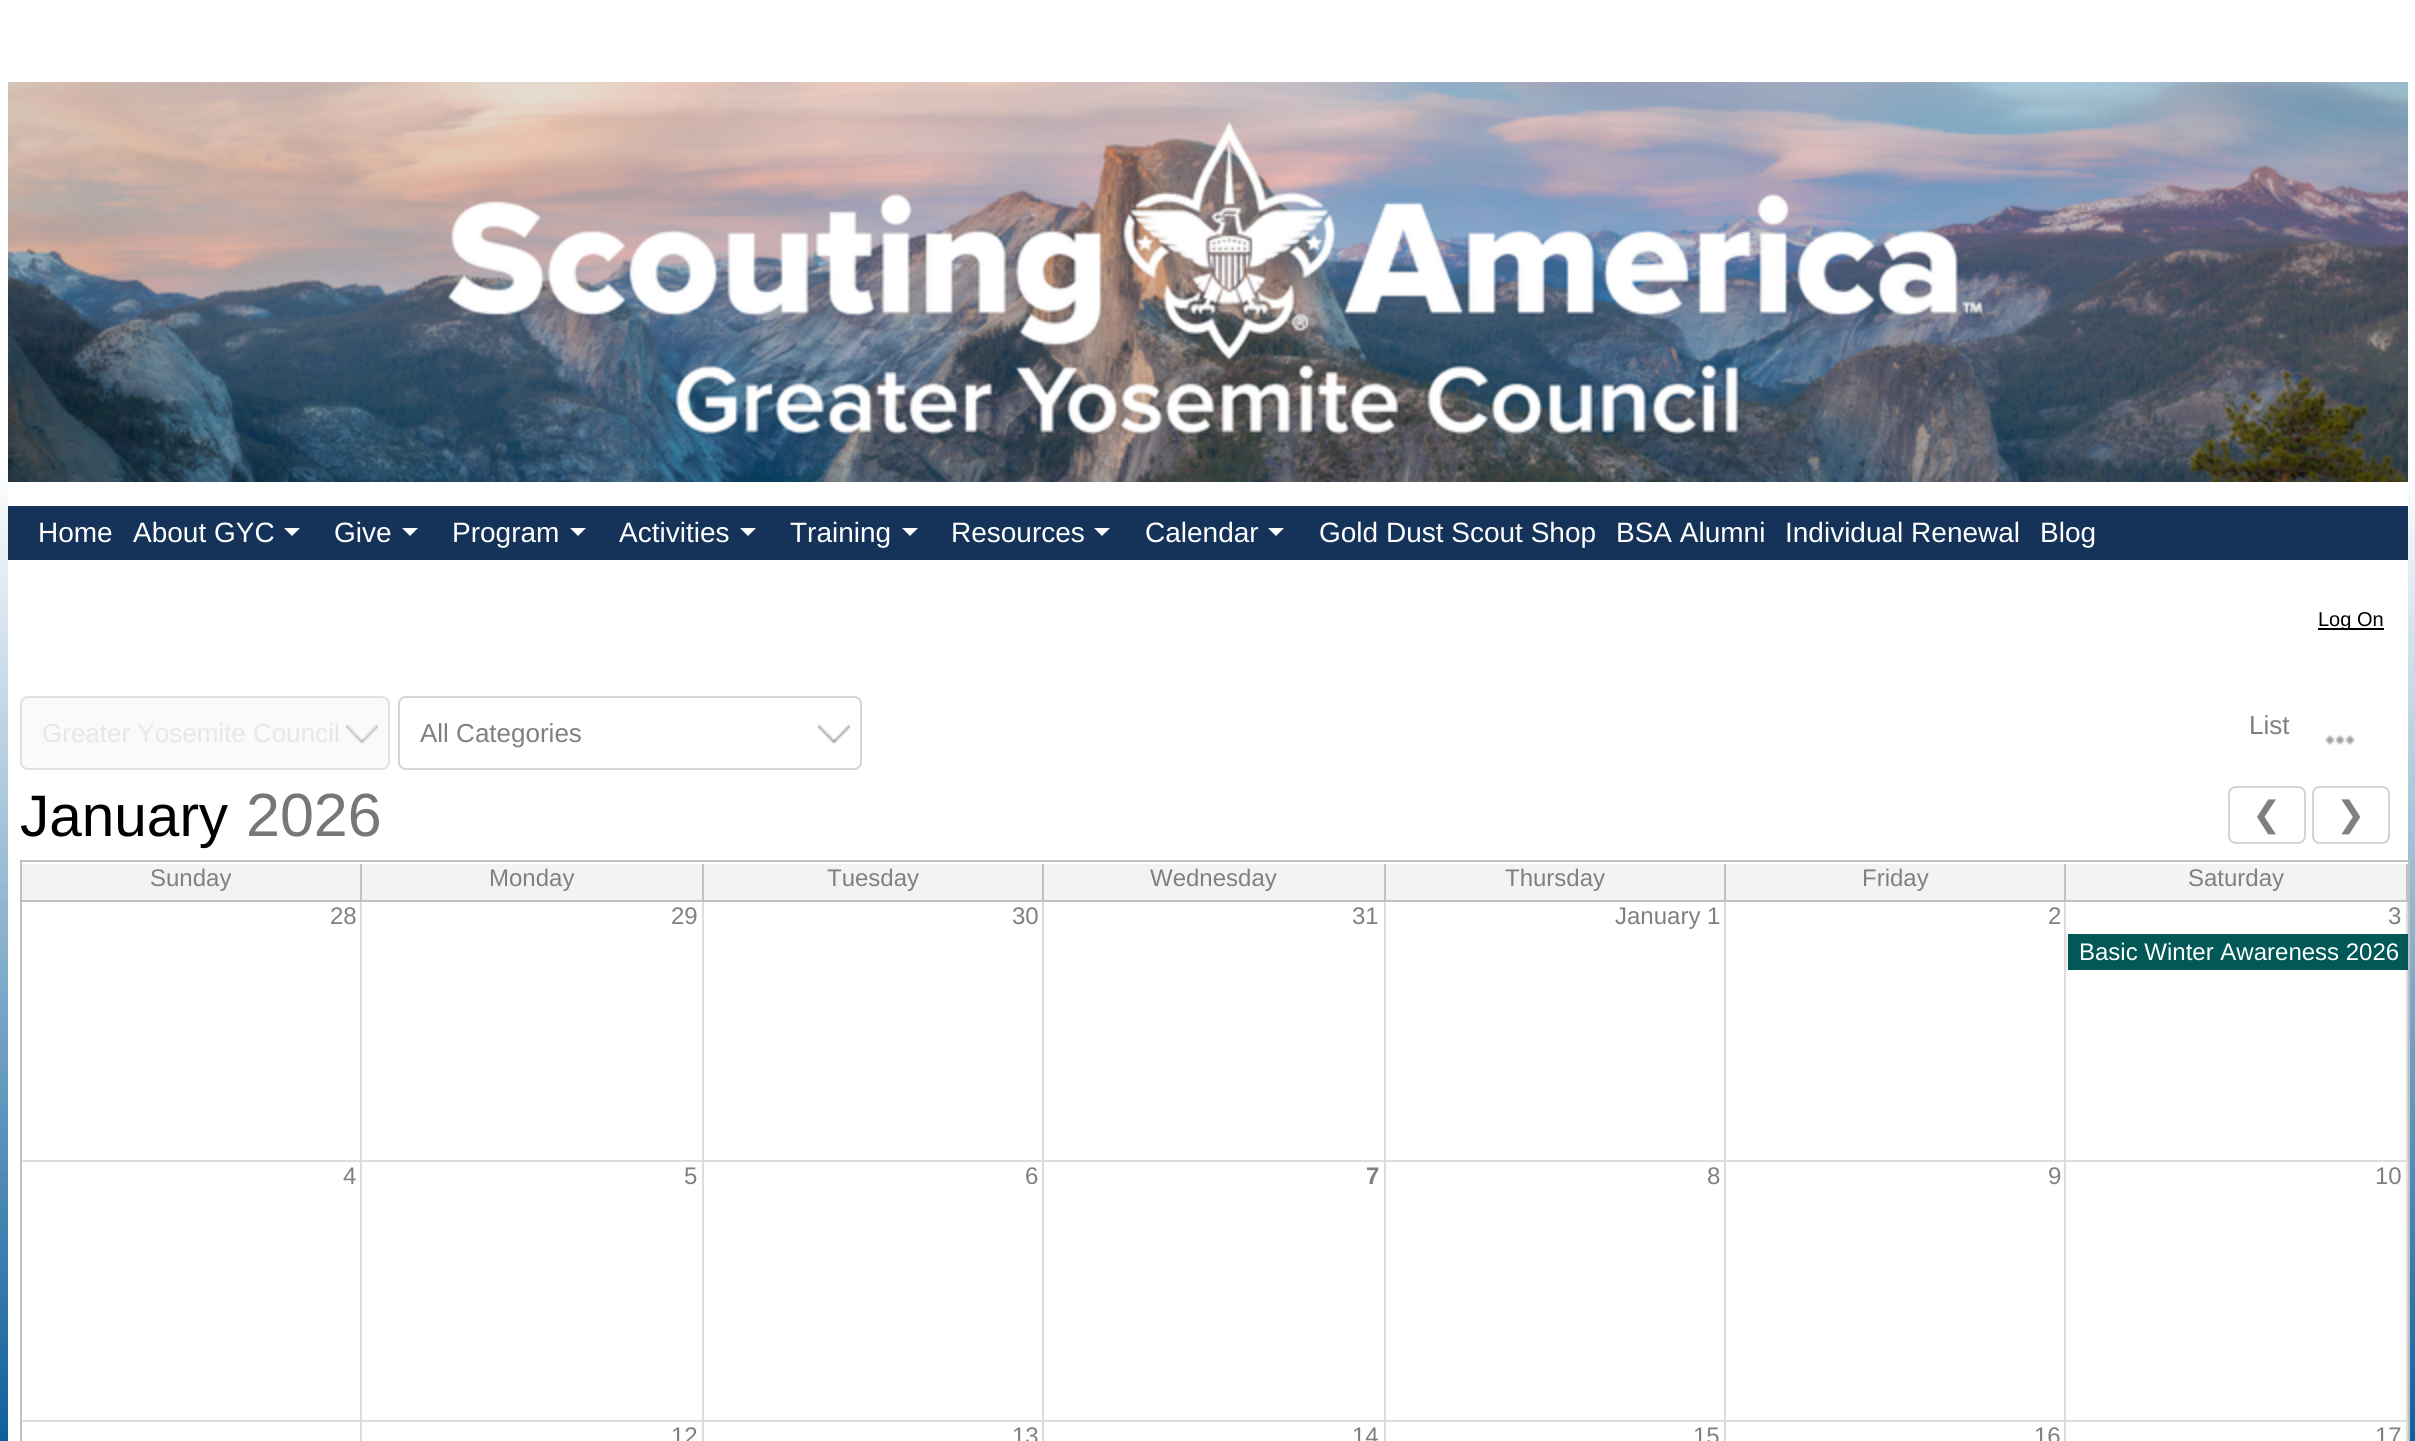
#include <cairo.h>
#include <math.h>
#include <stddef.h>

typedef struct { double x, y; const char *s; } line_t;
typedef struct { double x, y, w, h; unsigned color; } box_t;

static void ink(cairo_t *ctx, unsigned color) {
    cairo_set_source_rgb(ctx, (color >> 16) / 255.0, (color >> 8 & 255) / 255.0, (color & 255) / 255.0);
}

static void round_path(cairo_t *ctx, double x, double y, double w, double h, double r) {
    cairo_new_sub_path(ctx);
    cairo_arc(ctx, x + w - r, y + h - r, r, 0, M_PI / 2);
    cairo_arc(ctx, x + r, y + h - r, r, M_PI / 2, M_PI);
    cairo_arc(ctx, x + r, y + r, r, M_PI, 1.5 * M_PI);
    cairo_arc(ctx, x + w - r, y + r, r, 1.5 * M_PI, 2 * M_PI);
    cairo_close_path(ctx);
}

static void paste(cairo_t *ctx, const char *path, double x, double y, double w, double h) {
    cairo_surface_t *image = cairo_image_surface_create_from_png(path);
    cairo_save(ctx);
    cairo_set_source_surface(ctx, image, x, y);
    cairo_rectangle(ctx, x, y, w, h);
    cairo_fill(ctx);
    cairo_restore(ctx);
    cairo_surface_destroy(image);
}

int main(void) {
    cairo_surface_t *surface = cairo_image_surface_create(CAIRO_FORMAT_RGB24, 2415, 1441);
    cairo_t *ctx = cairo_create(surface);
    cairo_font_options_t *options = cairo_font_options_create();
    cairo_font_options_set_hint_metrics(options, CAIRO_HINT_METRICS_OFF);
    cairo_font_options_set_hint_style(options, CAIRO_HINT_STYLE_NONE);
    cairo_set_font_options(ctx, options);
    cairo_set_miter_limit(ctx, 4);
    ink(ctx, 0xFFFFFF);
    cairo_paint(ctx);
    paste(ctx, "media/1.png", 0, 0, 2415, 1441);
    ink(ctx, 0xFFFFFF);
    cairo_rectangle(ctx, 8, 470, 2400, 971);
    cairo_fill(ctx);
    paste(ctx, "media/2.png", 8, 82, 2400, 400);
    ink(ctx, 0x153359);
    cairo_rectangle(ctx, 8, 506, 2400, 54);
    cairo_fill(ctx);
    cairo_select_font_face(ctx, "Liberation Sans", CAIRO_FONT_SLANT_NORMAL, CAIRO_FONT_WEIGHT_NORMAL);
    cairo_set_font_size(ctx, 28);
    ink(ctx, 0xFFFFFF);
    cairo_move_to(ctx, 38, 542);
    cairo_show_text(ctx, "Home");
    cairo_move_to(ctx, 133, 542);
    cairo_show_text(ctx, "About GYC");
    cairo_new_path(ctx);
    cairo_move_to(ctx, 284, 528);
    cairo_line_to(ctx, 300, 528);
    cairo_line_to(ctx, 292, 536);
    cairo_close_path(ctx);
    cairo_fill(ctx);
    cairo_move_to(ctx, 334, 542);
    cairo_show_text(ctx, "Give");
    cairo_new_path(ctx);
    cairo_move_to(ctx, 402, 528);
    cairo_line_to(ctx, 418, 528);
    cairo_line_to(ctx, 410, 536);
    cairo_close_path(ctx);
    cairo_fill(ctx);
    cairo_move_to(ctx, 452, 542);
    cairo_show_text(ctx, "Program");
    cairo_new_path(ctx);
    cairo_move_to(ctx, 570, 528);
    cairo_line_to(ctx, 586, 528);
    cairo_line_to(ctx, 578, 536);
    cairo_close_path(ctx);
    cairo_fill(ctx);
    cairo_move_to(ctx, 619, 542);
    cairo_show_text(ctx, "Activities");
    cairo_new_path(ctx);
    cairo_move_to(ctx, 740, 528);
    cairo_line_to(ctx, 756, 528);
    cairo_line_to(ctx, 748, 536);
    cairo_close_path(ctx);
    cairo_fill(ctx);
    cairo_move_to(ctx, 790, 542);
    cairo_show_text(ctx, "Training");
    cairo_new_path(ctx);
    cairo_move_to(ctx, 902, 528);
    cairo_line_to(ctx, 918, 528);
    cairo_line_to(ctx, 910, 536);
    cairo_close_path(ctx);
    cairo_fill(ctx);
    cairo_move_to(ctx, 951, 542);
    cairo_show_text(ctx, "Resources");
    cairo_new_path(ctx);
    cairo_move_to(ctx, 1094, 528);
    cairo_line_to(ctx, 1110, 528);
    cairo_line_to(ctx, 1102, 536);
    cairo_close_path(ctx);
    cairo_fill(ctx);
    cairo_move_to(ctx, 1145, 542);
    cairo_show_text(ctx, "Calendar");
    cairo_new_path(ctx);
    cairo_move_to(ctx, 1268, 528);
    cairo_line_to(ctx, 1284, 528);
    cairo_line_to(ctx, 1276, 536);
    cairo_close_path(ctx);
    cairo_fill(ctx);
    {
        static const line_t items[] = {
            {1319, 542, "Gold Dust Scout Shop"},
            {1616, 542, "BSA Alumni"},
            {1785, 542, "Individual Renewal"},
            {2040, 542, "Blog"},
        };
        for (size_t i = 0; i < sizeof items / sizeof *items; i++) {
            cairo_move_to(ctx, items[i].x, items[i].y);
            cairo_show_text(ctx, items[i].s);
        }
    }
    ink(ctx, 0x000000);
    cairo_rectangle(ctx, 2318, 628, 66, 2);
    cairo_fill(ctx);
    cairo_set_font_size(ctx, 20);
    cairo_move_to(ctx, 2318, 626);
    cairo_show_text(ctx, "Log On");
    ink(ctx, 0xFAFAFA);
    round_path(ctx, 20, 696, 370, 74, 8);
    cairo_fill(ctx);
    paste(ctx, "media/3.png", 346, 723, 32, 21);
    round_path(ctx, 21, 697, 368, 72, 7);
    ink(ctx, 0xE1E1E1);
    cairo_stroke(ctx);
    cairo_set_font_size(ctx, 26);
    ink(ctx, 0xE7E7E7);
    cairo_move_to(ctx, 42, 742);
    cairo_show_text(ctx, "Greater Yosemite Council");
    paste(ctx, "media/4.png", 818, 723, 32, 22);
    round_path(ctx, 399, 697, 462, 72, 7);
    ink(ctx, 0xD4D4D4);
    cairo_stroke(ctx);
    ink(ctx, 0x808080);
    cairo_move_to(ctx, 420, 742);
    cairo_show_text(ctx, "All Categories");
    cairo_move_to(ctx, 2249, 734);
    cairo_show_text(ctx, "List");
    paste(ctx, "media/5.png", 2325, 735, 30, 10);
    cairo_set_font_size(ctx, 58.5);
    ink(ctx, 0x000000);
    cairo_move_to(ctx, 20, 836);
    cairo_show_text(ctx, "January");
    cairo_set_font_size(ctx, 61);
    ink(ctx, 0x777777);
    cairo_move_to(ctx, 246, 836);
    cairo_show_text(ctx, "2026");
    round_path(ctx, 2229, 787, 76, 56, 7);
    ink(ctx, 0xD4D4D4);
    cairo_stroke(ctx);
    cairo_select_font_face(ctx, "DejaVu Sans", CAIRO_FONT_SLANT_NORMAL, CAIRO_FONT_WEIGHT_NORMAL);
    cairo_set_font_size(ctx, 35);
    ink(ctx, 0x808080);
    cairo_move_to(ctx, 2252, 826);
    cairo_show_text(ctx, "❮");
    round_path(ctx, 2313, 787, 76, 56, 7);
    ink(ctx, 0xD4D4D4);
    cairo_stroke(ctx);
    ink(ctx, 0x808080);
    cairo_move_to(ctx, 2336, 826);
    cairo_show_text(ctx, "❯");
    cairo_rectangle(ctx, 21, 861, 2388, 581);
    ink(ctx, 0xC0C0C0);
    cairo_stroke(ctx);
    {
        static const box_t items[] = {
            {22, 864, 338, 36, 0xF3F3F3},
            {360, 864, 2, 38, 0xC0C0C0},
            {22, 900, 340, 2, 0xC0C0C0},
        };
        for (size_t i = 0; i < sizeof items / sizeof *items; i++) {
            ink(ctx, items[i].color);
            cairo_rectangle(ctx, items[i].x, items[i].y, items[i].w, items[i].h);
            cairo_fill(ctx);
        }
    }
    cairo_select_font_face(ctx, "Liberation Sans", CAIRO_FONT_SLANT_NORMAL, CAIRO_FONT_WEIGHT_NORMAL);
    cairo_set_font_size(ctx, 24);
    ink(ctx, 0x808080);
    cairo_move_to(ctx, 150, 886);
    cairo_show_text(ctx, "Sunday");
    {
        static const box_t items[] = {
            {362, 864, 340, 36, 0xF3F3F3},
            {702, 864, 2, 38, 0xC0C0C0},
            {362, 900, 342, 2, 0xC0C0C0},
        };
        for (size_t i = 0; i < sizeof items / sizeof *items; i++) {
            ink(ctx, items[i].color);
            cairo_rectangle(ctx, items[i].x, items[i].y, items[i].w, items[i].h);
            cairo_fill(ctx);
        }
    }
    ink(ctx, 0x808080);
    cairo_move_to(ctx, 489, 886);
    cairo_show_text(ctx, "Monday");
    {
        static const box_t items[] = {
            {704, 864, 338, 36, 0xF3F3F3},
            {1042, 864, 2, 38, 0xC0C0C0},
            {704, 900, 340, 2, 0xC0C0C0},
        };
        for (size_t i = 0; i < sizeof items / sizeof *items; i++) {
            ink(ctx, items[i].color);
            cairo_rectangle(ctx, items[i].x, items[i].y, items[i].w, items[i].h);
            cairo_fill(ctx);
        }
    }
    ink(ctx, 0x808080);
    cairo_move_to(ctx, 827, 886);
    cairo_show_text(ctx, "Tuesday");
    {
        static const box_t items[] = {
            {1044, 864, 340, 36, 0xF3F3F3},
            {1384, 864, 2, 38, 0xC0C0C0},
            {1044, 900, 342, 2, 0xC0C0C0},
        };
        for (size_t i = 0; i < sizeof items / sizeof *items; i++) {
            ink(ctx, items[i].color);
            cairo_rectangle(ctx, items[i].x, items[i].y, items[i].w, items[i].h);
            cairo_fill(ctx);
        }
    }
    ink(ctx, 0x808080);
    cairo_move_to(ctx, 1150, 886);
    cairo_show_text(ctx, "Wednesday");
    {
        static const box_t items[] = {
            {1386, 864, 338, 36, 0xF3F3F3},
            {1724, 864, 2, 38, 0xC0C0C0},
            {1386, 900, 340, 2, 0xC0C0C0},
        };
        for (size_t i = 0; i < sizeof items / sizeof *items; i++) {
            ink(ctx, items[i].color);
            cairo_rectangle(ctx, items[i].x, items[i].y, items[i].w, items[i].h);
            cairo_fill(ctx);
        }
    }
    ink(ctx, 0x808080);
    cairo_move_to(ctx, 1505, 886);
    cairo_show_text(ctx, "Thursday");
    {
        static const box_t items[] = {
            {1726, 864, 338, 36, 0xF3F3F3},
            {2064, 864, 2, 38, 0xC0C0C0},
            {1726, 900, 340, 2, 0xC0C0C0},
        };
        for (size_t i = 0; i < sizeof items / sizeof *items; i++) {
            ink(ctx, items[i].color);
            cairo_rectangle(ctx, items[i].x, items[i].y, items[i].w, items[i].h);
            cairo_fill(ctx);
        }
    }
    ink(ctx, 0x808080);
    cairo_move_to(ctx, 1862, 886);
    cairo_show_text(ctx, "Friday");
    {
        static const box_t items[] = {
            {2066, 864, 340, 36, 0xF3F3F3},
            {2406, 864, 2, 38, 0xC0C0C0},
            {2066, 900, 342, 2, 0xC0C0C0},
        };
        for (size_t i = 0; i < sizeof items / sizeof *items; i++) {
            ink(ctx, items[i].color);
            cairo_rectangle(ctx, items[i].x, items[i].y, items[i].w, items[i].h);
            cairo_fill(ctx);
        }
    }
    ink(ctx, 0x808080);
    cairo_move_to(ctx, 2188, 886);
    cairo_show_text(ctx, "Saturday");
    ink(ctx, 0xDDDDDD);
    cairo_rectangle(ctx, 360, 902, 2, 539);
    cairo_fill(ctx);
    cairo_rectangle(ctx, 22, 1160, 340, 2);
    cairo_fill(ctx);
    ink(ctx, 0x808080);
    cairo_move_to(ctx, 330, 924);
    cairo_show_text(ctx, "28");
    ink(ctx, 0xDDDDDD);
    cairo_rectangle(ctx, 702, 902, 2, 539);
    cairo_fill(ctx);
    cairo_rectangle(ctx, 362, 1160, 342, 2);
    cairo_fill(ctx);
    ink(ctx, 0x808080);
    cairo_move_to(ctx, 671, 924);
    cairo_show_text(ctx, "29");
    ink(ctx, 0xDDDDDD);
    cairo_rectangle(ctx, 1042, 902, 2, 539);
    cairo_fill(ctx);
    cairo_rectangle(ctx, 704, 1160, 340, 2);
    cairo_fill(ctx);
    ink(ctx, 0x808080);
    cairo_move_to(ctx, 1012, 924);
    cairo_show_text(ctx, "30");
    ink(ctx, 0xDDDDDD);
    cairo_rectangle(ctx, 1384, 902, 2, 539);
    cairo_fill(ctx);
    cairo_rectangle(ctx, 1044, 1160, 342, 2);
    cairo_fill(ctx);
    ink(ctx, 0x808080);
    cairo_move_to(ctx, 1352, 924);
    cairo_show_text(ctx, "31");
    ink(ctx, 0xDDDDDD);
    cairo_rectangle(ctx, 1724, 902, 2, 539);
    cairo_fill(ctx);
    cairo_rectangle(ctx, 1386, 1160, 340, 2);
    cairo_fill(ctx);
    ink(ctx, 0x808080);
    cairo_move_to(ctx, 1615, 924);
    cairo_show_text(ctx, "January 1");
    ink(ctx, 0xDDDDDD);
    cairo_rectangle(ctx, 2064, 902, 2, 539);
    cairo_fill(ctx);
    cairo_rectangle(ctx, 1726, 1160, 340, 2);
    cairo_fill(ctx);
    ink(ctx, 0x808080);
    cairo_move_to(ctx, 2048, 924);
    cairo_show_text(ctx, "2");
    ink(ctx, 0xDDDDDD);
    cairo_rectangle(ctx, 2406, 902, 2, 539);
    cairo_fill(ctx);
    cairo_rectangle(ctx, 2066, 1160, 342, 2);
    cairo_fill(ctx);
    ink(ctx, 0x808080);
    cairo_move_to(ctx, 2388, 924);
    cairo_show_text(ctx, "3");
    ink(ctx, 0xDDDDDD);
    cairo_rectangle(ctx, 22, 1420, 340, 2);
    cairo_fill(ctx);
    ink(ctx, 0x808080);
    cairo_move_to(ctx, 343, 1184);
    cairo_show_text(ctx, "4");
    ink(ctx, 0xDDDDDD);
    cairo_rectangle(ctx, 362, 1420, 342, 2);
    cairo_fill(ctx);
    ink(ctx, 0x808080);
    cairo_move_to(ctx, 684, 1184);
    cairo_show_text(ctx, "5");
    ink(ctx, 0xDDDDDD);
    cairo_rectangle(ctx, 704, 1420, 340, 2);
    cairo_fill(ctx);
    ink(ctx, 0x808080);
    cairo_move_to(ctx, 1025, 1184);
    cairo_show_text(ctx, "6");
    ink(ctx, 0xDDDDDD);
    cairo_rectangle(ctx, 1044, 1420, 342, 2);
    cairo_fill(ctx);
    cairo_select_font_face(ctx, "Liberation Sans", CAIRO_FONT_SLANT_NORMAL, CAIRO_FONT_WEIGHT_BOLD);
    ink(ctx, 0x808080);
    cairo_move_to(ctx, 1366, 1184);
    cairo_show_text(ctx, "7");
    ink(ctx, 0xDDDDDD);
    cairo_rectangle(ctx, 1386, 1420, 340, 2);
    cairo_fill(ctx);
    cairo_select_font_face(ctx, "Liberation Sans", CAIRO_FONT_SLANT_NORMAL, CAIRO_FONT_WEIGHT_NORMAL);
    ink(ctx, 0x808080);
    cairo_move_to(ctx, 1707, 1184);
    cairo_show_text(ctx, "8");
    ink(ctx, 0xDDDDDD);
    cairo_rectangle(ctx, 1726, 1420, 340, 2);
    cairo_fill(ctx);
    ink(ctx, 0x808080);
    cairo_move_to(ctx, 2048, 1184);
    cairo_show_text(ctx, "9");
    ink(ctx, 0xDDDDDD);
    cairo_rectangle(ctx, 2066, 1420, 342, 2);
    cairo_fill(ctx);
    ink(ctx, 0x808080);
    {
        static const line_t items[] = {
            {2375, 1184, "10"},
            {671, 1444, "12"},
            {1012, 1444, "13"},
            {1352, 1444, "14"},
            {1693, 1444, "15"},
            {2034, 1444, "16"},
            {2375, 1444, "17"},
        };
        for (size_t i = 0; i < sizeof items / sizeof *items; i++) {
            cairo_move_to(ctx, items[i].x, items[i].y);
            cairo_show_text(ctx, items[i].s);
        }
    }
    ink(ctx, 0x015856);
    cairo_rectangle(ctx, 2068, 934, 340, 36);
    cairo_fill(ctx);
    ink(ctx, 0xF0F0F0);
    cairo_rectangle(ctx, 2066, 934, 2, 36);
    cairo_fill(ctx);
    ink(ctx, 0xFFFFFF);
    cairo_move_to(ctx, 2079, 960);
    cairo_show_text(ctx, "Basic Winter Awareness 2026");
    cairo_surface_write_to_png(surface, "image.png");
    cairo_font_options_destroy(options);
    cairo_destroy(ctx);
    cairo_surface_destroy(surface);
    return 0;
}
